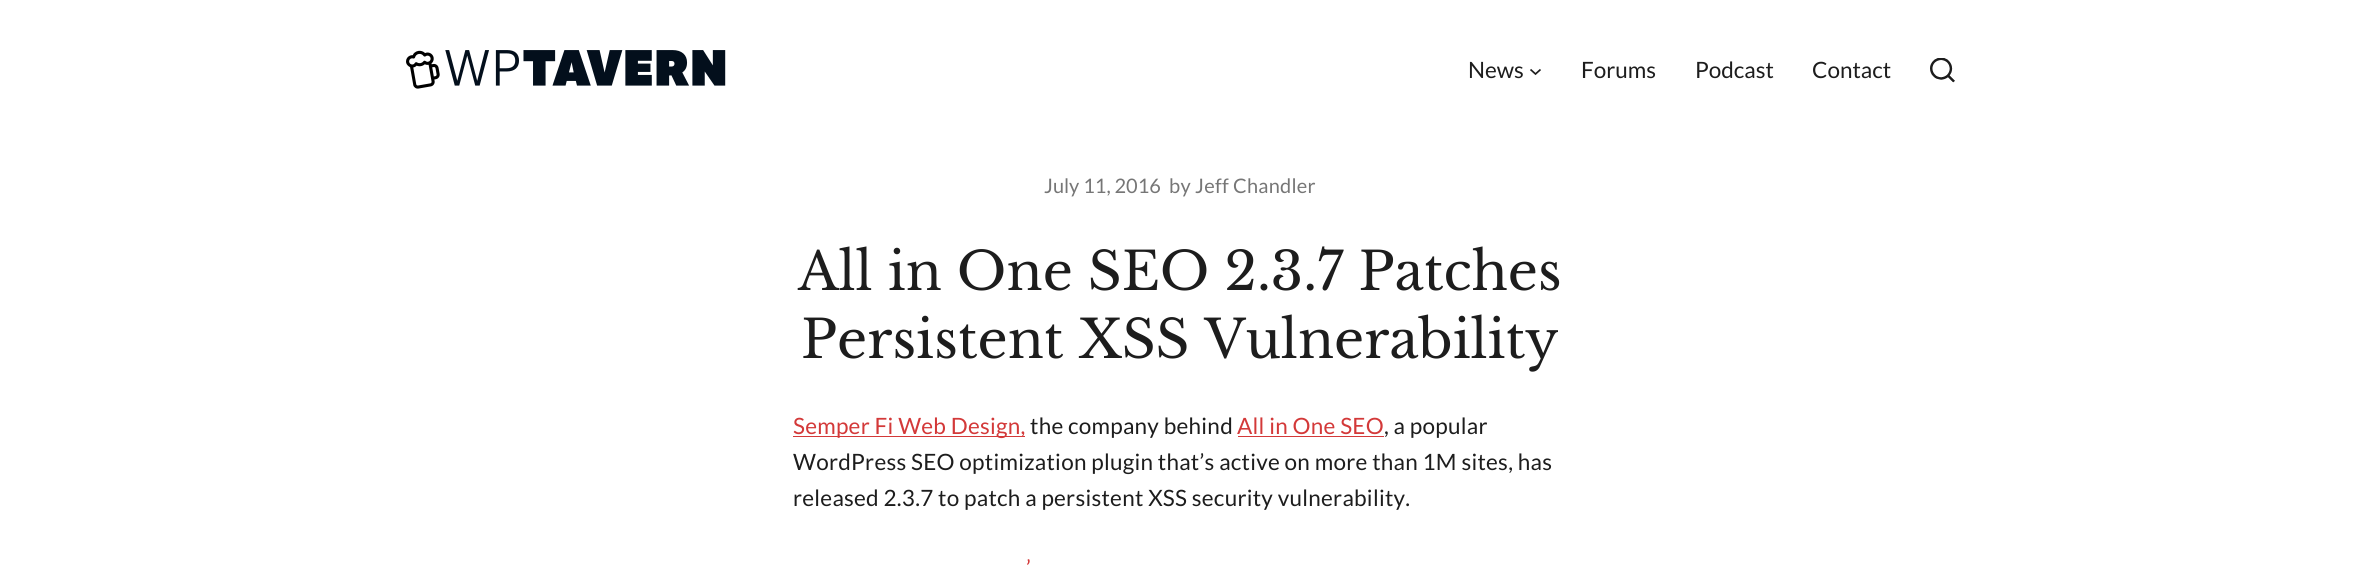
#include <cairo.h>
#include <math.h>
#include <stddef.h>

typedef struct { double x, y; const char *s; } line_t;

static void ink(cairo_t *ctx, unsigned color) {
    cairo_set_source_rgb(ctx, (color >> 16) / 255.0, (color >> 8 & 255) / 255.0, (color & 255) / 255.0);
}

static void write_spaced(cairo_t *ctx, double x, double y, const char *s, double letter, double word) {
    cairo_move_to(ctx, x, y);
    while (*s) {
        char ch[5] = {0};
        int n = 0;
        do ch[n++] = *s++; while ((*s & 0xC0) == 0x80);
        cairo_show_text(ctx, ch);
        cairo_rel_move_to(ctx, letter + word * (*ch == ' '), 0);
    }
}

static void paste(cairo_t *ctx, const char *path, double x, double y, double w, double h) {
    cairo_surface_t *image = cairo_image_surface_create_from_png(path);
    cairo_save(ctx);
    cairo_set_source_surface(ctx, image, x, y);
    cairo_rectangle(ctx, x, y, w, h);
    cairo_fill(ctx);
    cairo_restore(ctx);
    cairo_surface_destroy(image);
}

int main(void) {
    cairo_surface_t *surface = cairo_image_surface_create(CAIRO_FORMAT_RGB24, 2360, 568);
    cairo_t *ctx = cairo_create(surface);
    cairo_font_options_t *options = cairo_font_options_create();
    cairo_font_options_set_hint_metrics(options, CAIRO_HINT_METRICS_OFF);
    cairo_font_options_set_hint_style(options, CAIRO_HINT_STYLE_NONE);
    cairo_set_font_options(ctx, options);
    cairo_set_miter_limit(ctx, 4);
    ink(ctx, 0xFFFFFF);
    cairo_paint(ctx);
    paste(ctx, "media/1.png", 406, 50, 320, 39);
    cairo_select_font_face(ctx, "Lato", CAIRO_FONT_SLANT_NORMAL, CAIRO_FONT_WEIGHT_NORMAL);
    cairo_set_font_size(ctx, 22.5);
    ink(ctx, 0x1D1D1D);
    cairo_move_to(ctx, 1468, 78);
    cairo_show_text(ctx, "News");
    cairo_new_path(ctx);
    cairo_move_to(ctx, 1530.5, 69.5);
    cairo_line_to(ctx, 1535.5, 74);
    cairo_line_to(ctx, 1540.5, 69.5);
    cairo_set_line_width(ctx, 1.7);
    cairo_stroke(ctx);
    {
        static const line_t items[] = {
            {1581, 78, "Forums"},
            {1695, 78, "Podcast"},
            {1812, 78, "Contact"},
        };
        for (size_t i = 0; i < sizeof items / sizeof *items; i++) {
            cairo_move_to(ctx, items[i].x, items[i].y);
            cairo_show_text(ctx, items[i].s);
        }
    }
    paste(ctx, "media/2.png", 1930, 58, 25, 25);
    cairo_set_font_size(ctx, 20);
    ink(ctx, 0x767676);
    cairo_move_to(ctx, 1044, 193);
    cairo_show_text(ctx, "July 11, 2016");
    write_spaced(ctx, 1169, 193, "by Jeff Chandler", 0.25, 0);
    cairo_select_font_face(ctx, "Libre Baskerville", CAIRO_FONT_SLANT_NORMAL, CAIRO_FONT_WEIGHT_NORMAL);
    cairo_set_font_size(ctx, 52.5);
    ink(ctx, 0x1D1D1D);
    cairo_move_to(ctx, 798, 290);
    cairo_show_text(ctx, "All in One SEO 2.3.7 Patches");
    cairo_move_to(ctx, 801, 358);
    cairo_show_text(ctx, "Persistent XSS Vulnerability");
    ink(ctx, 0xD33939);
    cairo_rectangle(ctx, 793, 436, 232, 1);
    cairo_fill(ctx);
    cairo_select_font_face(ctx, "Lato", CAIRO_FONT_SLANT_NORMAL, CAIRO_FONT_WEIGHT_NORMAL);
    cairo_set_font_size(ctx, 22.5);
    write_spaced(ctx, 793, 434, "Semper Fi Web Design,", 0.25, 0);
    ink(ctx, 0x1D1D1D);
    write_spaced(ctx, 1030, 434, "the company behind", 0.25, 0);
    ink(ctx, 0xD33939);
    write_spaced(ctx, 1237, 434, "All in One SEO", 0.25, 0);
    cairo_rectangle(ctx, 1238, 436, 146, 1);
    cairo_fill(ctx);
    ink(ctx, 0x1D1D1D);
    {
        static const line_t items[] = {
            {1384, 434, ", a popular"},
            {793, 470, "WordPress SEO optimization plugin that’s active on more than 1M sites, has"},
            {793, 506, "released 2.3.7 to patch a persistent XSS security vulnerability."},
        };
        for (size_t i = 0; i < sizeof items / sizeof *items; i++) {
            write_spaced(ctx, items[i].x, items[i].y, items[i].s, 0.25, 0);
        }
    }
    ink(ctx, 0xD33939);
    write_spaced(ctx, 1026, 576, "’", 0.25, 0);
    cairo_surface_write_to_png(surface, "image.png");
    cairo_font_options_destroy(options);
    cairo_destroy(ctx);
    cairo_surface_destroy(surface);
    return 0;
}
